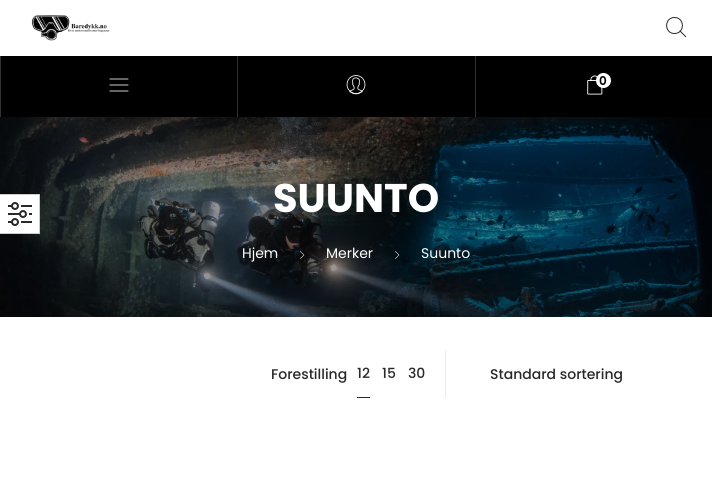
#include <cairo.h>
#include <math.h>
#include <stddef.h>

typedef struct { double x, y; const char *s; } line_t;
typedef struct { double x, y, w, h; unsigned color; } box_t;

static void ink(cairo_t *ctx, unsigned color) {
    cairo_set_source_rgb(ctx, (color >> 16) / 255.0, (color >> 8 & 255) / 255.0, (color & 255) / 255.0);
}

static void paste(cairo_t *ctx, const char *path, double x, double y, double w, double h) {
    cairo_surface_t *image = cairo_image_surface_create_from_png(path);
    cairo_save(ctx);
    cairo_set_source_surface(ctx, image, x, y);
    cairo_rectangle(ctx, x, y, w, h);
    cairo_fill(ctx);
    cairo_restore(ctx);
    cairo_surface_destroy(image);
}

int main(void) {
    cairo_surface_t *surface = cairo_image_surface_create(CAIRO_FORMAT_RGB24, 712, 484);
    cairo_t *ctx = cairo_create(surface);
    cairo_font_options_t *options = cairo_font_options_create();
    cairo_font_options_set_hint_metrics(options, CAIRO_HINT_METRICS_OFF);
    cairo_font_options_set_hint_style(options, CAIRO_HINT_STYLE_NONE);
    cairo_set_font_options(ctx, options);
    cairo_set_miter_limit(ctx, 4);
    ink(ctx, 0xFFFFFF);
    cairo_paint(ctx);
    paste(ctx, "media/1.png", 31, 15, 79, 26);
    cairo_save(ctx);
    cairo_rectangle(ctx, 666, 17, 20, 20);
    cairo_clip(ctx);
    cairo_new_path(ctx);
    cairo_move_to(ctx, 686.5, 37.5);
    cairo_line_to(ctx, 680, 31);
    cairo_move_to(ctx, 674.5, 33.5);
    cairo_curve_to(ctx, 685, 33.5, 685, 17.5, 674.5, 17.5);
    cairo_curve_to(ctx, 664, 17.5, 664, 33.5, 674.5, 33.5);
    cairo_close_path(ctx);
    ink(ctx, 0x292929);
    cairo_set_line_width(ctx, 1);
    cairo_set_line_cap(ctx, CAIRO_LINE_CAP_SQUARE);
    cairo_stroke(ctx);
    cairo_restore(ctx);
    ink(ctx, 0x000000);
    cairo_rectangle(ctx, 1, 56, 711, 61);
    cairo_fill(ctx);
    ink(ctx, 0x333333);
    cairo_rectangle(ctx, 0, 56, 1, 61);
    cairo_fill(ctx);
    cairo_new_path(ctx);
    cairo_move_to(ctx, 110, 85);
    cairo_line_to(ctx, 128, 85);
    cairo_move_to(ctx, 110, 79);
    cairo_line_to(ctx, 128, 79);
    cairo_move_to(ctx, 110, 91);
    cairo_line_to(ctx, 128, 91);
    ink(ctx, 0xFFFFFF);
    cairo_set_line_width(ctx, 0.8);
    cairo_set_line_cap(ctx, CAIRO_LINE_CAP_SQUARE);
    cairo_stroke(ctx);
    ink(ctx, 0x333333);
    cairo_rectangle(ctx, 237, 56, 1, 61);
    cairo_fill(ctx);
    paste(ctx, "media/2.png", 346, 75, 20, 20);
    cairo_rectangle(ctx, 475, 56, 1, 61);
    cairo_fill(ctx);
    paste(ctx, "media/3.png", 587, 75, 16, 20);
    ink(ctx, 0xFFFFFF);
    cairo_arc(ctx, 603.5, 80.5, 7.5, 0, 2 * M_PI);
    cairo_fill(ctx);
    cairo_select_font_face(ctx, "Poppins SemiBold", CAIRO_FONT_SLANT_NORMAL, CAIRO_FONT_WEIGHT_NORMAL);
    cairo_set_font_size(ctx, 12);
    ink(ctx, 0x000000);
    cairo_move_to(ctx, 599, 85);
    cairo_show_text(ctx, "0");
    paste(ctx, "media/4.png", 0, 117, 712, 200);
    cairo_select_font_face(ctx, "Poppins", CAIRO_FONT_SLANT_NORMAL, CAIRO_FONT_WEIGHT_BOLD);
    cairo_set_font_size(ctx, 40);
    ink(ctx, 0xFFFFFF);
    cairo_move_to(ctx, 273, 212);
    cairo_show_text(ctx, "SUUNTO");
    cairo_select_font_face(ctx, "Poppins", CAIRO_FONT_SLANT_NORMAL, CAIRO_FONT_WEIGHT_NORMAL);
    cairo_set_font_size(ctx, 14);
    cairo_move_to(ctx, 242, 258);
    cairo_show_text(ctx, "Hjem");
    paste(ctx, "media/5.png", 300, 251, 5, 8);
    cairo_move_to(ctx, 326, 258);
    cairo_show_text(ctx, "Merker");
    paste(ctx, "media/6.png", 395, 251, 5, 8);
    cairo_move_to(ctx, 421, 258);
    cairo_show_text(ctx, "Suunto");
    {
        static const box_t items[] = {
            {0, 195, 39, 38, 0xFFFFFF},
            {0, 194, 40, 1, 0xCCCCCC},
            {39, 194, 1, 40, 0xCCCCCC},
            {0, 233, 40, 1, 0xCCCCCC},
        };
        for (size_t i = 0; i < sizeof items / sizeof *items; i++) {
            ink(ctx, items[i].color);
            cairo_rectangle(ctx, items[i].x, items[i].y, items[i].w, items[i].h);
            cairo_fill(ctx);
        }
    }
    paste(ctx, "media/7.png", 8, 202, 24, 24);
    ink(ctx, 0xEBEBEB);
    cairo_rectangle(ctx, 445, 350, 1, 48);
    cairo_fill(ctx);
    cairo_select_font_face(ctx, "Poppins Medium", CAIRO_FONT_SLANT_NORMAL, CAIRO_FONT_WEIGHT_NORMAL);
    ink(ctx, 0x292929);
    cairo_move_to(ctx, 271, 379);
    cairo_show_text(ctx, "Forestilling");
    cairo_rectangle(ctx, 357, 397, 13, 1);
    cairo_fill(ctx);
    {
        static const line_t items[] = {
            {357, 378, "12"},
            {382, 378, "15"},
            {408, 378, "30"},
            {490, 379, "Standard sortering"},
        };
        for (size_t i = 0; i < sizeof items / sizeof *items; i++) {
            cairo_move_to(ctx, items[i].x, items[i].y);
            cairo_show_text(ctx, items[i].s);
        }
    }
    cairo_surface_write_to_png(surface, "image.png");
    cairo_font_options_destroy(options);
    cairo_destroy(ctx);
    cairo_surface_destroy(surface);
    return 0;
}
